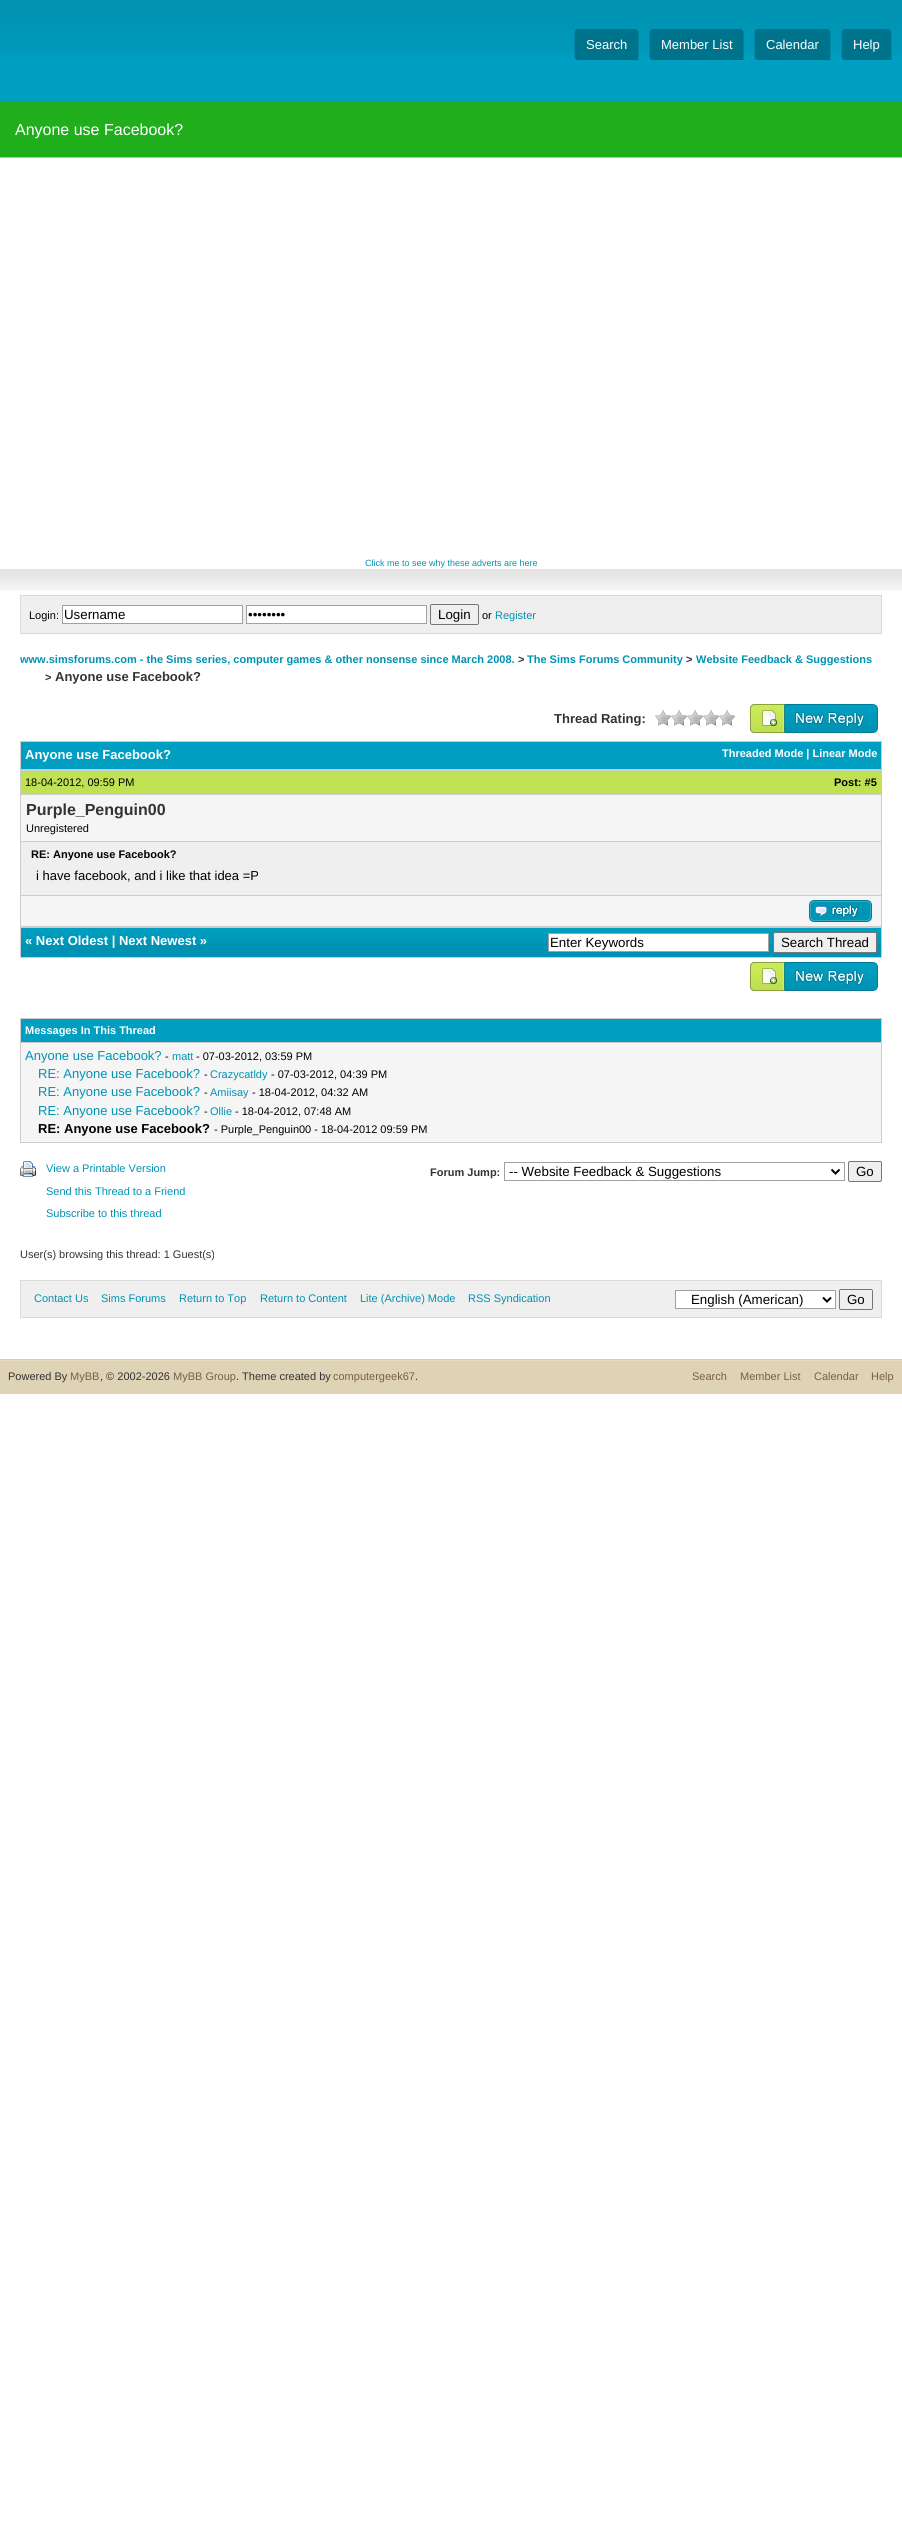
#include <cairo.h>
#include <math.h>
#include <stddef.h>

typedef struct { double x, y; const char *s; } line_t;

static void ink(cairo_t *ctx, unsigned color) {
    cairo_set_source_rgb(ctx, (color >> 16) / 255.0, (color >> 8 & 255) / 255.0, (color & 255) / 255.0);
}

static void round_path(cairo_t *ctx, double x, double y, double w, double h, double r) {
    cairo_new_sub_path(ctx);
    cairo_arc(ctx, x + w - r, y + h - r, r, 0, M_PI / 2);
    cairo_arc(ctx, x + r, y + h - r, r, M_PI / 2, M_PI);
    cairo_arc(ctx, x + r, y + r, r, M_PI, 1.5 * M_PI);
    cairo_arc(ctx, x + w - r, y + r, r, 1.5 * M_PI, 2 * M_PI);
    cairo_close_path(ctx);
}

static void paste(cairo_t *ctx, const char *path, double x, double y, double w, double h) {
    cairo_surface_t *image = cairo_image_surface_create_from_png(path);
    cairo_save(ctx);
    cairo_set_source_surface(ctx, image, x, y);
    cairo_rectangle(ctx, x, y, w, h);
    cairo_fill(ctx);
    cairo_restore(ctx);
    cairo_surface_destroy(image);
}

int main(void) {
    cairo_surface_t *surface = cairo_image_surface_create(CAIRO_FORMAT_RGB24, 902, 2527);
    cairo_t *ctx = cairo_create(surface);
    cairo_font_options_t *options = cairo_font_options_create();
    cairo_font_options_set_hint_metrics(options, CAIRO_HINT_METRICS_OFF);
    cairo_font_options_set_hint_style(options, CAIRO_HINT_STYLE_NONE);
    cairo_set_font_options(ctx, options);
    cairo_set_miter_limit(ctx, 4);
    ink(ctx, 0xFFFFFF);
    cairo_paint(ctx);
    ink(ctx, 0x009EC0);
    cairo_rectangle(ctx, 0, 55, 902, 47);
    cairo_fill(ctx);
    paste(ctx, "media/1.png", 0, 0, 902, 55);
    paste(ctx, "media/2.png", 574, 29, 65, 31);
    cairo_select_font_face(ctx, "Liberation Sans", CAIRO_FONT_SLANT_NORMAL, CAIRO_FONT_WEIGHT_NORMAL);
    cairo_set_font_size(ctx, 13);
    ink(ctx, 0xFFFFFF);
    cairo_move_to(ctx, 586, 49);
    cairo_show_text(ctx, "Search");
    paste(ctx, "media/3.png", 635, 29, 4, 30);
    paste(ctx, "media/4.png", 649, 29, 95, 31);
    cairo_move_to(ctx, 661, 49);
    cairo_show_text(ctx, "Member List");
    paste(ctx, "media/3.png", 740, 29, 4, 30);
    paste(ctx, "media/5.png", 754, 29, 77, 31);
    cairo_move_to(ctx, 766, 49);
    cairo_show_text(ctx, "Calendar");
    paste(ctx, "media/6.png", 827, 29, 4, 30);
    paste(ctx, "media/7.png", 841, 29, 51, 31);
    cairo_move_to(ctx, 853, 49);
    cairo_show_text(ctx, "Help");
    paste(ctx, "media/6.png", 888, 29, 4, 30);
    ink(ctx, 0x20AE1C);
    cairo_rectangle(ctx, 0, 102, 902, 55);
    cairo_fill(ctx);
    ink(ctx, 0xB7D64E);
    cairo_rectangle(ctx, 0, 157, 902, 1);
    cairo_fill(ctx);
    cairo_set_font_size(ctx, 16);
    ink(ctx, 0xFFFFFF);
    cairo_move_to(ctx, 15, 135);
    cairo_show_text(ctx, "Anyone use Facebook?");
    cairo_set_font_size(ctx, 9);
    ink(ctx, 0x0092B2);
    cairo_move_to(ctx, 365, 566);
    cairo_show_text(ctx, "Click me to see why these adverts are here");
    paste(ctx, "media/8.png", 0, 569, 902, 22);
    ink(ctx, 0xCCCCCC);
    cairo_rectangle(ctx, 0, 1359, 902, 1);
    cairo_fill(ctx);
    ink(ctx, 0xEFEFEF);
    cairo_rectangle(ctx, 20.5, 595.5, 861, 38);
    cairo_fill_preserve(ctx);
    ink(ctx, 0xDADADA);
    cairo_set_line_width(ctx, 1);
    cairo_stroke(ctx);
    cairo_set_font_size(ctx, 11);
    ink(ctx, 0x000000);
    cairo_move_to(ctx, 29, 619);
    cairo_show_text(ctx, "Login:");
    ink(ctx, 0xFFFFFF);
    cairo_rectangle(ctx, 62.5, 605.5, 180, 18);
    cairo_fill_preserve(ctx);
    ink(ctx, 0xA1A1A1);
    cairo_stroke(ctx);
    cairo_set_font_size(ctx, 13.3);
    ink(ctx, 0x000000);
    cairo_move_to(ctx, 64, 619);
    cairo_show_text(ctx, "Username");
    ink(ctx, 0xFFFFFF);
    cairo_rectangle(ctx, 246.5, 605.5, 180, 18);
    cairo_fill_preserve(ctx);
    ink(ctx, 0xA1A1A1);
    cairo_stroke(ctx);
    ink(ctx, 0x000000);
    cairo_move_to(ctx, 248, 619);
    cairo_show_text(ctx, "••••••••");
    round_path(ctx, 430.5, 604.5, 48, 20, 1.5);
    ink(ctx, 0x767676);
    cairo_stroke(ctx);
    ink(ctx, 0x000000);
    cairo_move_to(ctx, 438, 619);
    cairo_show_text(ctx, "Login");
    cairo_set_font_size(ctx, 11);
    cairo_move_to(ctx, 482, 619);
    cairo_show_text(ctx, "or");
    ink(ctx, 0x0092B2);
    cairo_move_to(ctx, 495, 619);
    cairo_show_text(ctx, "Register");
    cairo_select_font_face(ctx, "Liberation Sans", CAIRO_FONT_SLANT_NORMAL, CAIRO_FONT_WEIGHT_BOLD);
    cairo_move_to(ctx, 20, 663);
    cairo_show_text(ctx, "www.simsforums.com - the Sims series, computer games & other nonsense since March 2008.");
    ink(ctx, 0x333333);
    cairo_move_to(ctx, 518, 663);
    cairo_show_text(ctx, ">");
    ink(ctx, 0x0092B2);
    cairo_move_to(ctx, 527, 663);
    cairo_show_text(ctx, "The Sims Forums Community");
    ink(ctx, 0x333333);
    cairo_move_to(ctx, 686, 663);
    cairo_show_text(ctx, ">");
    ink(ctx, 0x0092B2);
    cairo_move_to(ctx, 696, 663);
    cairo_show_text(ctx, "Website Feedback & Suggestions");
    ink(ctx, 0x333333);
    cairo_move_to(ctx, 45, 681);
    cairo_show_text(ctx, ">");
    cairo_set_font_size(ctx, 13);
    cairo_move_to(ctx, 55, 681);
    cairo_show_text(ctx, "Anyone use Facebook?");
    cairo_move_to(ctx, 554, 723);
    cairo_show_text(ctx, "Thread Rating:");
    paste(ctx, "media/9.png", 655, 710, 80, 16);
    paste(ctx, "media/10.png", 750, 704, 128, 29);
    ink(ctx, 0xCCCCCC);
    cairo_rectangle(ctx, 20, 741, 862, 217);
    cairo_fill(ctx);
    ink(ctx, 0x009EC0);
    cairo_rectangle(ctx, 21, 742, 860, 27);
    cairo_fill(ctx);
    ink(ctx, 0xFFFFFF);
    cairo_move_to(ctx, 25, 759);
    cairo_show_text(ctx, "Anyone use Facebook?");
    cairo_set_font_size(ctx, 11);
    cairo_move_to(ctx, 722, 757);
    cairo_show_text(ctx, "Threaded Mode | Linear Mode");
    ink(ctx, 0xC1E154);
    cairo_rectangle(ctx, 21, 771, 860, 23);
    cairo_fill(ctx);
    cairo_select_font_face(ctx, "Liberation Sans", CAIRO_FONT_SLANT_NORMAL, CAIRO_FONT_WEIGHT_NORMAL);
    ink(ctx, 0x000000);
    cairo_move_to(ctx, 25, 786);
    cairo_show_text(ctx, "18-04-2012, 09:59 PM");
    cairo_select_font_face(ctx, "Liberation Sans", CAIRO_FONT_SLANT_NORMAL, CAIRO_FONT_WEIGHT_BOLD);
    cairo_move_to(ctx, 834, 786);
    cairo_show_text(ctx, "Post: #5");
    ink(ctx, 0xF5F5F5);
    cairo_rectangle(ctx, 21, 795, 860, 46);
    cairo_fill(ctx);
    cairo_set_font_size(ctx, 16);
    ink(ctx, 0x333333);
    cairo_move_to(ctx, 26, 815);
    cairo_show_text(ctx, "Purple_Penguin00");
    cairo_select_font_face(ctx, "Liberation Sans", CAIRO_FONT_SLANT_NORMAL, CAIRO_FONT_WEIGHT_NORMAL);
    cairo_set_font_size(ctx, 11);
    ink(ctx, 0x000000);
    cairo_move_to(ctx, 26, 832);
    cairo_show_text(ctx, "Unregistered");
    ink(ctx, 0xEFEFEF);
    cairo_rectangle(ctx, 21, 842, 860, 53);
    cairo_fill(ctx);
    cairo_select_font_face(ctx, "Liberation Sans", CAIRO_FONT_SLANT_NORMAL, CAIRO_FONT_WEIGHT_BOLD);
    ink(ctx, 0x000000);
    cairo_move_to(ctx, 31, 858);
    cairo_show_text(ctx, "RE: Anyone use Facebook?");
    cairo_select_font_face(ctx, "Liberation Sans", CAIRO_FONT_SLANT_NORMAL, CAIRO_FONT_WEIGHT_NORMAL);
    cairo_set_font_size(ctx, 13);
    cairo_move_to(ctx, 36, 880);
    cairo_show_text(ctx, "i have facebook, and i like that idea =P");
    ink(ctx, 0xF5F5F5);
    cairo_rectangle(ctx, 21, 896, 860, 30);
    cairo_fill(ctx);
    paste(ctx, "media/11.png", 809, 900, 63, 22);
    ink(ctx, 0x0092B2);
    cairo_rectangle(ctx, 21, 944, 860, 13);
    cairo_fill(ctx);
    paste(ctx, "media/12.png", 21, 928, 860, 16);
    cairo_select_font_face(ctx, "Liberation Sans", CAIRO_FONT_SLANT_NORMAL, CAIRO_FONT_WEIGHT_BOLD);
    ink(ctx, 0xFFFFFF);
    cairo_move_to(ctx, 25, 945);
    cairo_show_text(ctx, "« Next Oldest | Next Newest »");
    cairo_rectangle(ctx, 548.5, 933.5, 220, 18);
    cairo_fill_preserve(ctx);
    ink(ctx, 0xA1A1A1);
    cairo_stroke(ctx);
    cairo_select_font_face(ctx, "Liberation Sans", CAIRO_FONT_SLANT_NORMAL, CAIRO_FONT_WEIGHT_NORMAL);
    cairo_set_font_size(ctx, 13.3);
    ink(ctx, 0x000000);
    cairo_move_to(ctx, 550, 947);
    cairo_show_text(ctx, "Enter Keywords");
    ink(ctx, 0xEFEFEF);
    round_path(ctx, 773.5, 932.5, 103, 20, 1.5);
    cairo_fill_preserve(ctx);
    ink(ctx, 0x767676);
    cairo_stroke(ctx);
    ink(ctx, 0x000000);
    cairo_move_to(ctx, 781, 947);
    cairo_show_text(ctx, "Search Thread");
    paste(ctx, "media/10.png", 750, 962, 128, 29);
    ink(ctx, 0xCCCCCC);
    cairo_rectangle(ctx, 20, 1018, 862, 125);
    cairo_fill(ctx);
    ink(ctx, 0x009EC0);
    cairo_rectangle(ctx, 21, 1019, 860, 23);
    cairo_fill(ctx);
    cairo_select_font_face(ctx, "Liberation Sans", CAIRO_FONT_SLANT_NORMAL, CAIRO_FONT_WEIGHT_BOLD);
    cairo_set_font_size(ctx, 11);
    ink(ctx, 0xFFFFFF);
    cairo_move_to(ctx, 25, 1034);
    cairo_show_text(ctx, "Messages In This Thread");
    ink(ctx, 0xF5F5F5);
    cairo_rectangle(ctx, 21, 1043, 860, 99);
    cairo_fill(ctx);
    cairo_select_font_face(ctx, "Liberation Sans", CAIRO_FONT_SLANT_NORMAL, CAIRO_FONT_WEIGHT_NORMAL);
    cairo_set_font_size(ctx, 13);
    ink(ctx, 0x0092B2);
    cairo_move_to(ctx, 25, 1060);
    cairo_show_text(ctx, "Anyone use Facebook?");
    cairo_set_font_size(ctx, 11);
    ink(ctx, 0x000000);
    cairo_move_to(ctx, 165, 1060);
    cairo_show_text(ctx, "-");
    ink(ctx, 0x0092B2);
    cairo_move_to(ctx, 172, 1060);
    cairo_show_text(ctx, "matt");
    ink(ctx, 0x000000);
    cairo_move_to(ctx, 196, 1060);
    cairo_show_text(ctx, "- 07-03-2012, 03:59 PM");
    cairo_set_font_size(ctx, 13);
    ink(ctx, 0x0092B2);
    cairo_move_to(ctx, 38, 1078);
    cairo_show_text(ctx, "RE: Anyone use Facebook?");
    cairo_set_font_size(ctx, 11);
    ink(ctx, 0x000000);
    cairo_move_to(ctx, 204, 1078);
    cairo_show_text(ctx, "-");
    ink(ctx, 0x0092B2);
    cairo_move_to(ctx, 210, 1078);
    cairo_show_text(ctx, "Crazycatldy");
    ink(ctx, 0x000000);
    cairo_move_to(ctx, 271, 1078);
    cairo_show_text(ctx, "- 07-03-2012, 04:39 PM");
    cairo_set_font_size(ctx, 13);
    ink(ctx, 0x0092B2);
    cairo_move_to(ctx, 38, 1096);
    cairo_show_text(ctx, "RE: Anyone use Facebook?");
    cairo_set_font_size(ctx, 11);
    ink(ctx, 0x000000);
    cairo_move_to(ctx, 204, 1096);
    cairo_show_text(ctx, "-");
    ink(ctx, 0x0092B2);
    cairo_move_to(ctx, 210, 1096);
    cairo_show_text(ctx, "Amiisay");
    ink(ctx, 0x000000);
    cairo_move_to(ctx, 252, 1096);
    cairo_show_text(ctx, "- 18-04-2012, 04:32 AM");
    cairo_set_font_size(ctx, 13);
    ink(ctx, 0x0092B2);
    cairo_move_to(ctx, 38, 1115);
    cairo_show_text(ctx, "RE: Anyone use Facebook?");
    cairo_set_font_size(ctx, 11);
    ink(ctx, 0x000000);
    cairo_move_to(ctx, 204, 1115);
    cairo_show_text(ctx, "-");
    ink(ctx, 0x0092B2);
    cairo_move_to(ctx, 210, 1115);
    cairo_show_text(ctx, "Ollie");
    ink(ctx, 0x000000);
    cairo_move_to(ctx, 235, 1115);
    cairo_show_text(ctx, "- 18-04-2012, 07:48 AM");
    cairo_select_font_face(ctx, "Liberation Sans", CAIRO_FONT_SLANT_NORMAL, CAIRO_FONT_WEIGHT_BOLD);
    cairo_set_font_size(ctx, 13);
    cairo_move_to(ctx, 38, 1133);
    cairo_show_text(ctx, "RE: Anyone use Facebook?");
    cairo_select_font_face(ctx, "Liberation Sans", CAIRO_FONT_SLANT_NORMAL, CAIRO_FONT_WEIGHT_NORMAL);
    cairo_set_font_size(ctx, 11);
    cairo_move_to(ctx, 214, 1133);
    cairo_show_text(ctx, "- Purple_Penguin00 - 18-04-2012 09:59 PM");
    paste(ctx, "media/13.png", 20, 1161, 16, 16);
    ink(ctx, 0x0092B2);
    {
        static const line_t items[] = {
            {46, 1172, "View a Printable Version"},
            {46, 1195, "Send this Thread to a Friend"},
            {46, 1217, "Subscribe to this thread"},
        };
        for (size_t i = 0; i < sizeof items / sizeof *items; i++) {
            cairo_move_to(ctx, items[i].x, items[i].y);
            cairo_show_text(ctx, items[i].s);
        }
    }
    cairo_select_font_face(ctx, "Liberation Sans", CAIRO_FONT_SLANT_NORMAL, CAIRO_FONT_WEIGHT_BOLD);
    ink(ctx, 0x333333);
    cairo_move_to(ctx, 430, 1176);
    cairo_show_text(ctx, "Forum Jump:");
    cairo_rectangle(ctx, 504.5, 1162.5, 340, 18);
    ink(ctx, 0xA1A1A1);
    cairo_stroke(ctx);
    cairo_new_path(ctx);
    cairo_move_to(ctx, 831.5, 1169.5);
    cairo_line_to(ctx, 835.5, 1173.5);
    cairo_line_to(ctx, 839.5, 1169.5);
    ink(ctx, 0x000000);
    cairo_set_line_width(ctx, 2);
    cairo_stroke(ctx);
    cairo_select_font_face(ctx, "Liberation Sans", CAIRO_FONT_SLANT_NORMAL, CAIRO_FONT_WEIGHT_NORMAL);
    cairo_set_font_size(ctx, 13.3);
    cairo_move_to(ctx, 509, 1176);
    cairo_show_text(ctx, "-- Website Feedback & Suggestions");
    ink(ctx, 0xEFEFEF);
    round_path(ctx, 848.5, 1161.5, 33, 20, 1.5);
    cairo_fill_preserve(ctx);
    ink(ctx, 0x767676);
    cairo_set_line_width(ctx, 1);
    cairo_stroke(ctx);
    ink(ctx, 0x000000);
    cairo_move_to(ctx, 856, 1176);
    cairo_show_text(ctx, "Go");
    cairo_set_font_size(ctx, 11);
    ink(ctx, 0x333333);
    cairo_move_to(ctx, 20, 1258);
    cairo_show_text(ctx, "User(s) browsing this thread: 1 Guest(s)");
    ink(ctx, 0xEFEFEF);
    cairo_rectangle(ctx, 20.5, 1280.5, 861, 37);
    cairo_fill_preserve(ctx);
    ink(ctx, 0xDADADA);
    cairo_stroke(ctx);
    ink(ctx, 0x0092B2);
    {
        static const line_t items[] = {
            {34, 1302, "Contact Us"},
            {101, 1302, "Sims Forums"},
            {179, 1302, "Return to Top"},
            {260, 1302, "Return to Content"},
            {360, 1302, "Lite (Archive) Mode"},
            {468, 1302, "RSS Syndication"},
        };
        for (size_t i = 0; i < sizeof items / sizeof *items; i++) {
            cairo_move_to(ctx, items[i].x, items[i].y);
            cairo_show_text(ctx, items[i].s);
        }
    }
    ink(ctx, 0xFFFFFF);
    cairo_rectangle(ctx, 675.5, 1290.5, 160, 18);
    cairo_fill_preserve(ctx);
    ink(ctx, 0xA1A1A1);
    cairo_stroke(ctx);
    cairo_new_path(ctx);
    cairo_move_to(ctx, 823, 1297.5);
    cairo_line_to(ctx, 827, 1301.5);
    cairo_line_to(ctx, 831, 1297.5);
    ink(ctx, 0x000000);
    cairo_set_line_width(ctx, 2);
    cairo_stroke(ctx);
    cairo_set_font_size(ctx, 13.3);
    cairo_move_to(ctx, 691, 1304);
    cairo_show_text(ctx, "English (American)");
    round_path(ctx, 839.5, 1289.5, 33, 20, 1.5);
    ink(ctx, 0x767676);
    cairo_set_line_width(ctx, 1);
    cairo_stroke(ctx);
    ink(ctx, 0x000000);
    cairo_move_to(ctx, 847, 1304);
    cairo_show_text(ctx, "Go");
    ink(ctx, 0xDFD3B6);
    cairo_rectangle(ctx, 0, 1361, 902, 33);
    cairo_fill(ctx);
    ink(ctx, 0xEADCBF);
    cairo_rectangle(ctx, 0, 1360, 902, 1);
    cairo_fill(ctx);
    cairo_set_font_size(ctx, 11);
    ink(ctx, 0x333333);
    cairo_move_to(ctx, 8, 1380);
    cairo_show_text(ctx, "Powered By");
    ink(ctx, 0x776045);
    cairo_move_to(ctx, 70, 1380);
    cairo_show_text(ctx, "MyBB");
    ink(ctx, 0x333333);
    cairo_move_to(ctx, 100, 1380);
    cairo_show_text(ctx, ", © 2002-2026");
    ink(ctx, 0x776045);
    cairo_move_to(ctx, 173, 1380);
    cairo_show_text(ctx, "MyBB Group");
    ink(ctx, 0x333333);
    cairo_move_to(ctx, 236, 1380);
    cairo_show_text(ctx, ". Theme created by");
    ink(ctx, 0x776045);
    cairo_move_to(ctx, 333, 1380);
    cairo_show_text(ctx, "computergeek67");
    ink(ctx, 0x333333);
    cairo_move_to(ctx, 415, 1380);
    cairo_show_text(ctx, ".");
    ink(ctx, 0x776045);
    {
        static const line_t items[] = {
            {692, 1380, "Search"},
            {740, 1380, "Member List"},
            {814, 1380, "Calendar"},
            {871, 1380, "Help"},
        };
        for (size_t i = 0; i < sizeof items / sizeof *items; i++) {
            cairo_move_to(ctx, items[i].x, items[i].y);
            cairo_show_text(ctx, items[i].s);
        }
    }
    cairo_surface_write_to_png(surface, "image.png");
    cairo_font_options_destroy(options);
    cairo_destroy(ctx);
    cairo_surface_destroy(surface);
    return 0;
}
